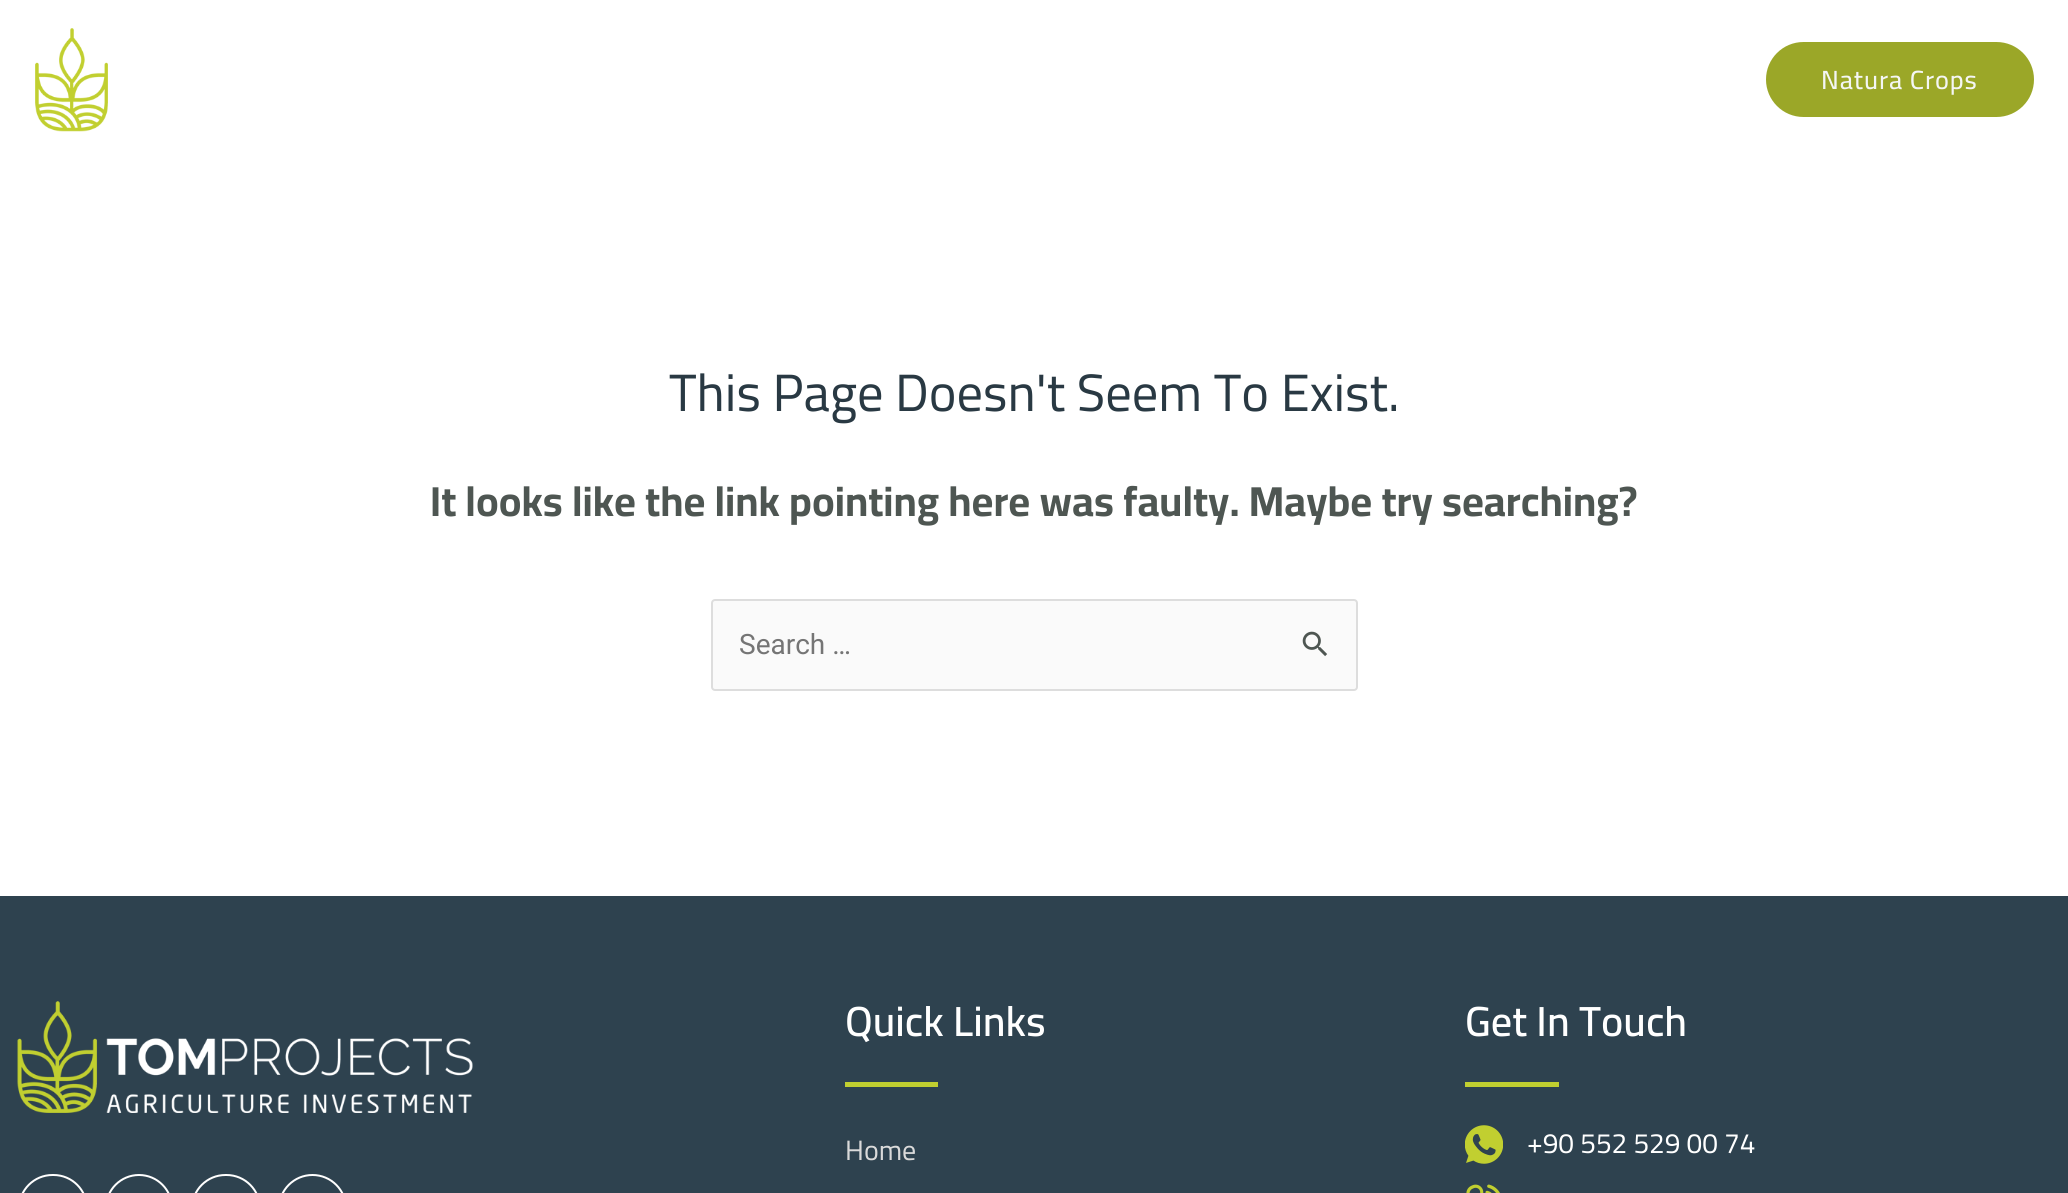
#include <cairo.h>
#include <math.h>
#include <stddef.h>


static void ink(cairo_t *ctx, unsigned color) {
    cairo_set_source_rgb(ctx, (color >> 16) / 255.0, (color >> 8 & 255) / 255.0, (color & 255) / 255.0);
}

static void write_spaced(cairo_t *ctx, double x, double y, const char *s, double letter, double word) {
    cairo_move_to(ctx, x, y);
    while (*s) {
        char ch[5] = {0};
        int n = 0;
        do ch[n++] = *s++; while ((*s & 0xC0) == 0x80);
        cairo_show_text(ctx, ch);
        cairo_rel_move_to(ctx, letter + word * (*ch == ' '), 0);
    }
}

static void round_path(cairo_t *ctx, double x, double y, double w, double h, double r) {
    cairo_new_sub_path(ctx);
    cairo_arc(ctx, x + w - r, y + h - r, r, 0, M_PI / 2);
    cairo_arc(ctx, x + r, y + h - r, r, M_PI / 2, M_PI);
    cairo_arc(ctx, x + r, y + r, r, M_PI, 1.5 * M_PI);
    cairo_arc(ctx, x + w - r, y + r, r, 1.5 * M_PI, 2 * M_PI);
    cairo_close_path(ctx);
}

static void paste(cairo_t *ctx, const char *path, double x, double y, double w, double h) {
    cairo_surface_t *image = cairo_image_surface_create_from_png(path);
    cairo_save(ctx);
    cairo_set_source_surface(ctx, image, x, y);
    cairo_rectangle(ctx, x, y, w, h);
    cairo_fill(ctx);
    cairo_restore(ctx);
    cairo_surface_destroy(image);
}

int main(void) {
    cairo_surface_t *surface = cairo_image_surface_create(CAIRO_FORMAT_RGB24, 2068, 1193);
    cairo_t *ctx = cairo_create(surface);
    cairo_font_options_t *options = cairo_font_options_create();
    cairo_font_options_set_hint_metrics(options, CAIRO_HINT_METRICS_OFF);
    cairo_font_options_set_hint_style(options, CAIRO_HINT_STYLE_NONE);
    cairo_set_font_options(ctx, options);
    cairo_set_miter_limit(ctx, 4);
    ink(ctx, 0xFFFFFF);
    cairo_paint(ctx);
    paste(ctx, "media/1.png", 35, 28, 73, 104);
    ink(ctx, 0x9BA728);
    round_path(ctx, 1766, 42, 268, 75, 37.5);
    cairo_fill(ctx);
    cairo_select_font_face(ctx, "Cairo Medium", CAIRO_FONT_SLANT_NORMAL, CAIRO_FONT_WEIGHT_NORMAL);
    cairo_set_font_size(ctx, 26.25);
    ink(ctx, 0xF4F6F4);
    write_spaced(ctx, 1821, 89, "Natura Crops", 0.9, 0);
    cairo_select_font_face(ctx, "Cairo", CAIRO_FONT_SLANT_NORMAL, CAIRO_FONT_WEIGHT_NORMAL);
    cairo_set_font_size(ctx, 52.5);
    ink(ctx, 0x293943);
    cairo_move_to(ctx, 669, 411);
    cairo_show_text(ctx, "This Page Doesn't Seem To Exist.");
    cairo_select_font_face(ctx, "Cairo", CAIRO_FONT_SLANT_NORMAL, CAIRO_FONT_WEIGHT_BOLD);
    cairo_set_font_size(ctx, 42);
    ink(ctx, 0x4E5652);
    cairo_move_to(ctx, 430, 516);
    cairo_show_text(ctx, "It looks like the link pointing here was faulty. Maybe try searching?");
    ink(ctx, 0xFAFAFA);
    round_path(ctx, 712, 600, 645, 90, 3);
    cairo_fill_preserve(ctx);
    ink(ctx, 0xDDDDDD);
    cairo_stroke(ctx);
    cairo_select_font_face(ctx, "Roboto", CAIRO_FONT_SLANT_NORMAL, CAIRO_FONT_WEIGHT_NORMAL);
    cairo_set_font_size(ctx, 28);
    ink(ctx, 0x757575);
    cairo_move_to(ctx, 739, 654);
    cairo_show_text(ctx, "Search …");
    paste(ctx, "media/2.png", 1302, 631, 26, 26);
    ink(ctx, 0x2E424F);
    cairo_rectangle(ctx, 0, 896, 2068, 297);
    cairo_fill(ctx);
    paste(ctx, "media/3.png", 17, 1001, 456, 112);
    round_path(ctx, 19, 1175, 68, 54, 33.5);
    ink(ctx, 0xFFFFFF);
    cairo_stroke(ctx);
    round_path(ctx, 106, 1175, 66, 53, 33);
    cairo_stroke(ctx);
    round_path(ctx, 192, 1175, 68, 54, 33.5);
    cairo_stroke(ctx);
    round_path(ctx, 279, 1175, 67, 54, 33.5);
    cairo_stroke(ctx);
    cairo_select_font_face(ctx, "Cairo SemiBold", CAIRO_FONT_SLANT_NORMAL, CAIRO_FONT_WEIGHT_NORMAL);
    cairo_set_font_size(ctx, 42);
    cairo_move_to(ctx, 845, 1036);
    cairo_show_text(ctx, "Quick Links");
    ink(ctx, 0xC1CF30);
    cairo_rectangle(ctx, 845, 1082, 93, 5);
    cairo_fill(ctx);
    cairo_select_font_face(ctx, "Cairo", CAIRO_FONT_SLANT_NORMAL, CAIRO_FONT_WEIGHT_NORMAL);
    cairo_set_font_size(ctx, 28);
    ink(ctx, 0xDADADA);
    cairo_move_to(ctx, 845, 1160);
    cairo_show_text(ctx, "Home");
    cairo_select_font_face(ctx, "Cairo SemiBold", CAIRO_FONT_SLANT_NORMAL, CAIRO_FONT_WEIGHT_NORMAL);
    cairo_set_font_size(ctx, 42);
    ink(ctx, 0xFFFFFF);
    cairo_move_to(ctx, 1465, 1036);
    cairo_show_text(ctx, "Get In Touch");
    ink(ctx, 0xC1CF30);
    cairo_rectangle(ctx, 1465, 1082, 94, 5);
    cairo_fill(ctx);
    paste(ctx, "media/4.png", 1465, 1125, 38, 39);
    cairo_select_font_face(ctx, "Cairo", CAIRO_FONT_SLANT_NORMAL, CAIRO_FONT_WEIGHT_NORMAL);
    cairo_set_font_size(ctx, 28);
    ink(ctx, 0xFFFFFF);
    cairo_move_to(ctx, 1527, 1153);
    cairo_show_text(ctx, "+90 552 529 00 74");
    paste(ctx, "media/5.png", 1466, 1184, 34, 9);
    cairo_surface_write_to_png(surface, "image.png");
    cairo_font_options_destroy(options);
    cairo_destroy(ctx);
    cairo_surface_destroy(surface);
    return 0;
}
